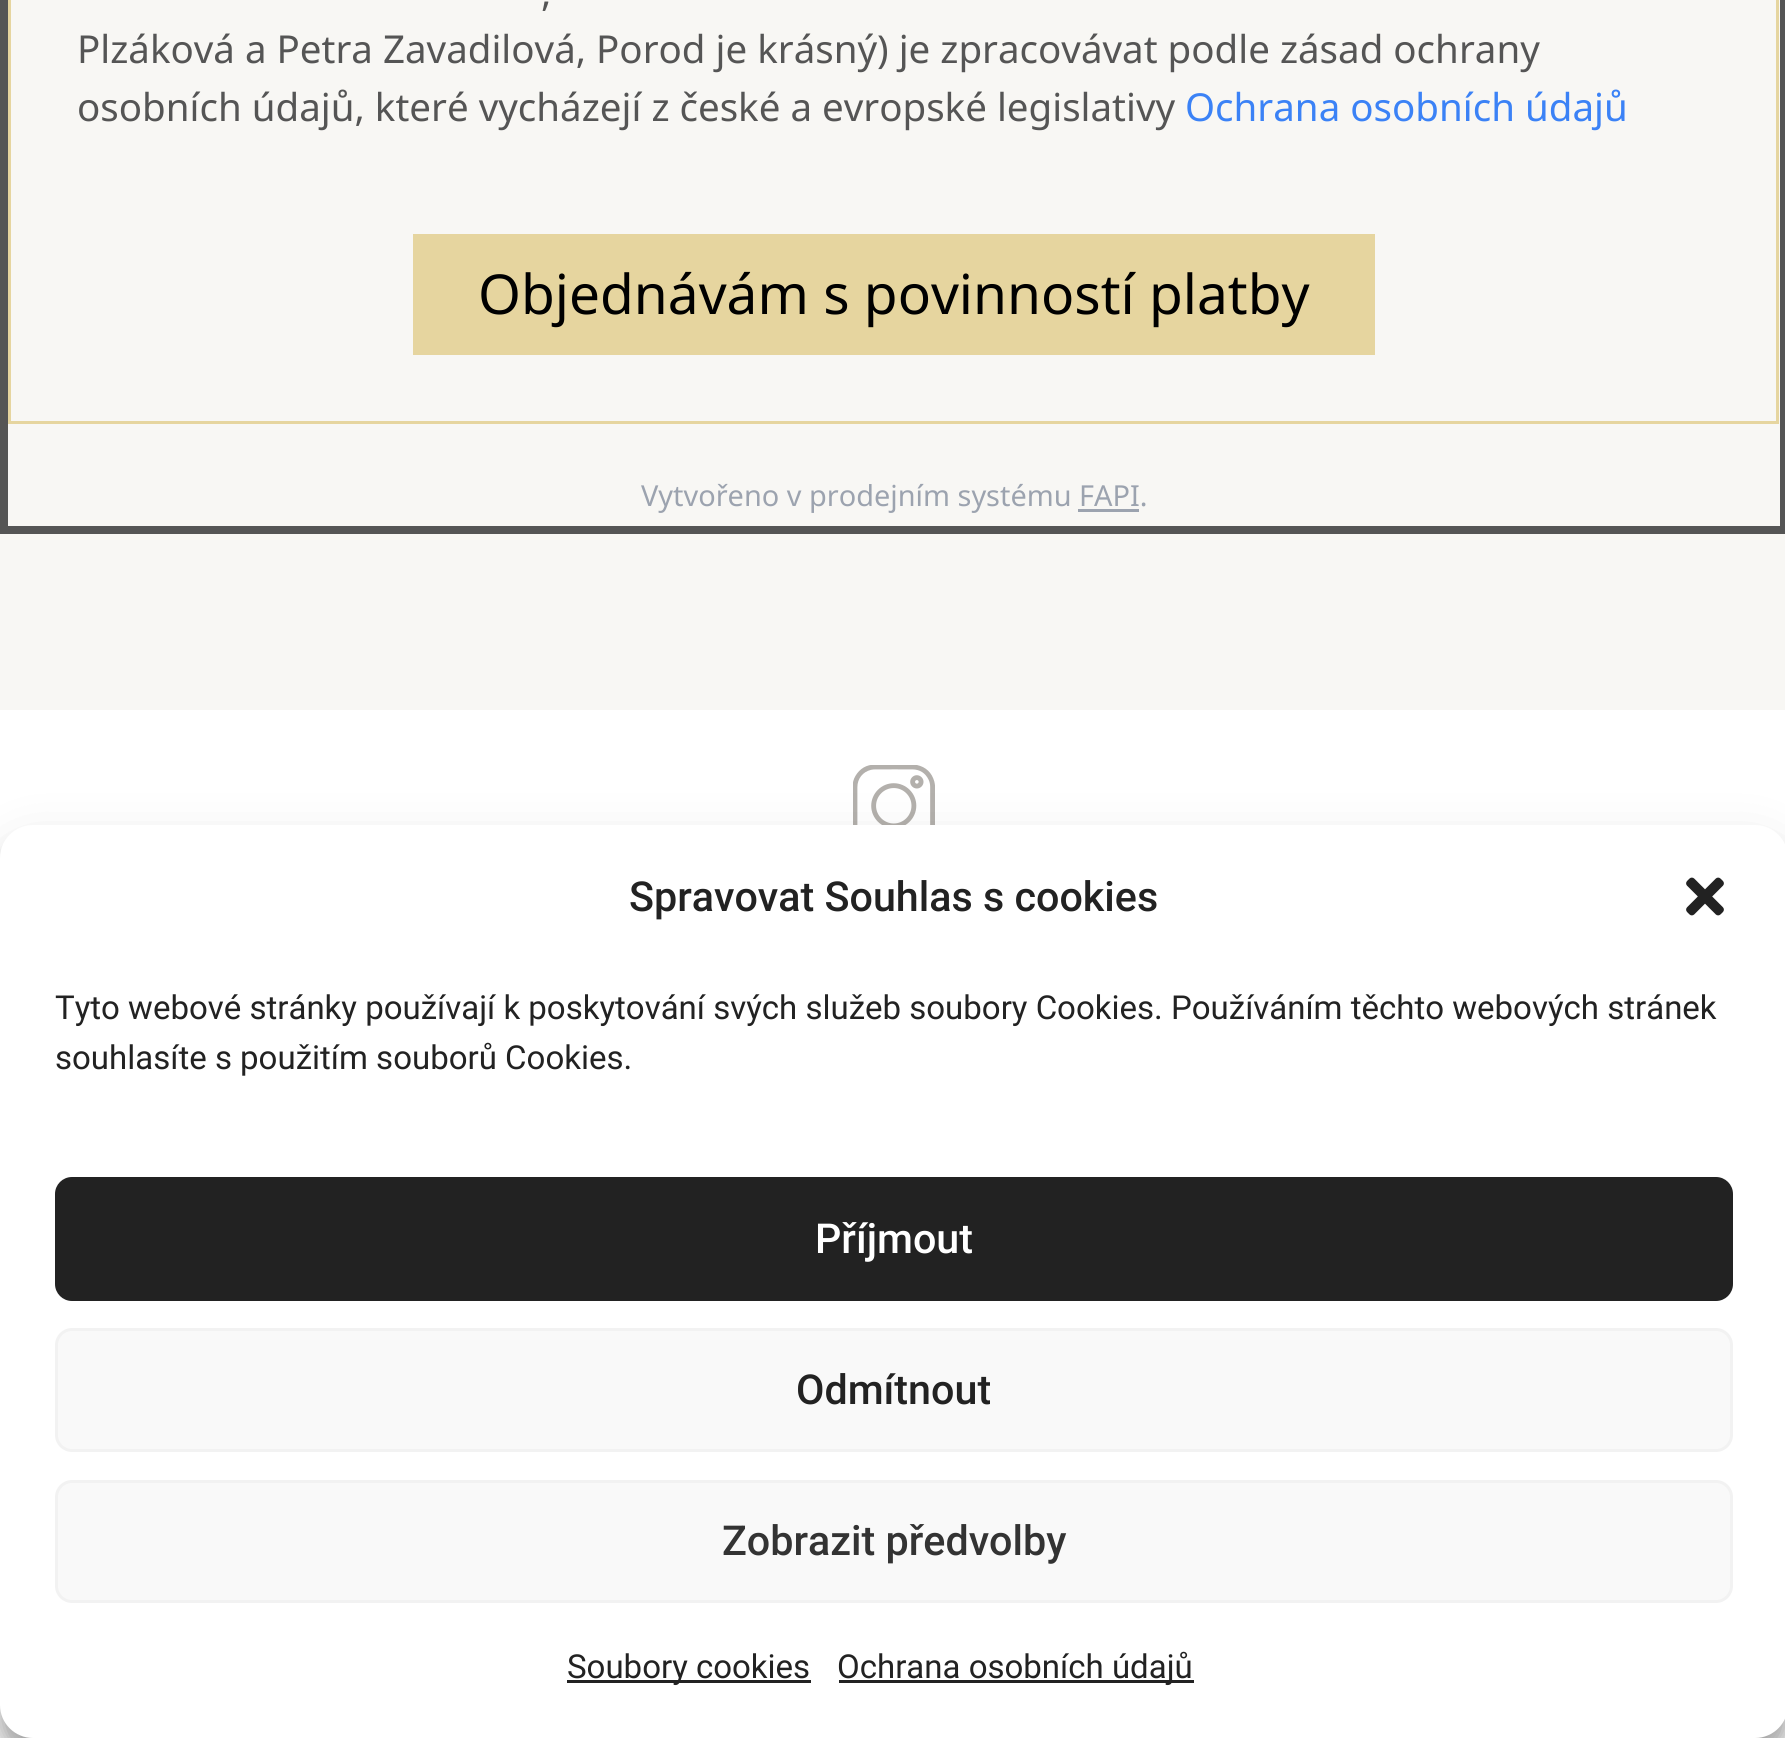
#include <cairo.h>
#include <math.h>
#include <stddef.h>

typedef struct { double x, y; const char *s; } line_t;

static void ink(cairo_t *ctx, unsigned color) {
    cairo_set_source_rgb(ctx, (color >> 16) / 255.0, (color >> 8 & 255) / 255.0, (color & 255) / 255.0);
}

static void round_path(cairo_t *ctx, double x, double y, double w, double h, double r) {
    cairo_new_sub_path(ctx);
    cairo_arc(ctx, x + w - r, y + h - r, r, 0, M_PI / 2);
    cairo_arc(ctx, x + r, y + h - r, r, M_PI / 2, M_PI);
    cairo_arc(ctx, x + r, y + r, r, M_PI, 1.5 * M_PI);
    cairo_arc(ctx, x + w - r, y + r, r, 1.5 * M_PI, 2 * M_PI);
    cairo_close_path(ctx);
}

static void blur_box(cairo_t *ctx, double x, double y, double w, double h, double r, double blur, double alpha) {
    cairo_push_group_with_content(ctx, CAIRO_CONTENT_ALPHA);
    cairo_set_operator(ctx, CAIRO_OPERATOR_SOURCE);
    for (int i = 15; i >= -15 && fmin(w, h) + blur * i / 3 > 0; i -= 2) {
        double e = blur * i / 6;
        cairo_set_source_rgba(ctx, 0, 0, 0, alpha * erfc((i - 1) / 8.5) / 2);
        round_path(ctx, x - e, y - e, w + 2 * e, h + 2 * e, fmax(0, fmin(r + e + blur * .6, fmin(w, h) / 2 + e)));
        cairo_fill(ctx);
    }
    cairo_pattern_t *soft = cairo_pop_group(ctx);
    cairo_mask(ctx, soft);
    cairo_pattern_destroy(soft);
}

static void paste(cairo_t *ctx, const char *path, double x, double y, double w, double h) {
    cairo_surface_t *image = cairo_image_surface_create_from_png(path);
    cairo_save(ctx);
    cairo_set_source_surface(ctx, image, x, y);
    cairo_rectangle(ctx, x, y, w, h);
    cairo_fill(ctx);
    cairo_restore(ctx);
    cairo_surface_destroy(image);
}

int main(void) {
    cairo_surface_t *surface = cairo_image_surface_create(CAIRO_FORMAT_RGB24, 1785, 1738);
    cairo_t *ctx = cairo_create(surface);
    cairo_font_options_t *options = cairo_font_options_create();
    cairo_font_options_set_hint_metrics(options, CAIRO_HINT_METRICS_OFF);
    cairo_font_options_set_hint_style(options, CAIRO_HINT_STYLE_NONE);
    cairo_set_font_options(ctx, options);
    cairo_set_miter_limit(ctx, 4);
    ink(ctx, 0xFFFFFF);
    cairo_paint(ctx);
    ink(ctx, 0xF8F7F4);
    cairo_rectangle(ctx, 0, 0, 1785, 710);
    cairo_fill(ctx);
    cairo_rectangle(ctx, 4, -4, 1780, 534);
    ink(ctx, 0x555555);
    cairo_set_line_width(ctx, 8);
    cairo_stroke(ctx);
    cairo_rectangle(ctx, 9.5, -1.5, 1768, 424);
    ink(ctx, 0xE6D59F);
    cairo_set_line_width(ctx, 3);
    cairo_stroke(ctx);
    cairo_select_font_face(ctx, "Noto Sans", CAIRO_FONT_SLANT_NORMAL, CAIRO_FONT_WEIGHT_NORMAL);
    cairo_set_font_size(ctx, 38.5);
    ink(ctx, 0x555555);
    {
        static const line_t items[] = {
            {541, 6, ","},
            {77, 63, "Plzáková a Petra Zavadilová, Porod je krásný) je zpracovávat podle zásad ochrany"},
            {77, 121, "osobních údajů, které vycházejí z české a evropské legislativy"},
        };
        for (size_t i = 0; i < sizeof items / sizeof *items; i++) {
            cairo_move_to(ctx, items[i].x, items[i].y);
            cairo_show_text(ctx, items[i].s);
        }
    }
    ink(ctx, 0x3B82F6);
    cairo_move_to(ctx, 1185, 121);
    cairo_show_text(ctx, "Ochrana osobních údajů");
    ink(ctx, 0xE6D59F);
    cairo_rectangle(ctx, 413, 234, 962, 121);
    cairo_fill(ctx);
    cairo_set_font_size(ctx, 55);
    ink(ctx, 0x000000);
    cairo_move_to(ctx, 478, 314);
    cairo_show_text(ctx, "Objednávám s povinností platby");
    cairo_set_font_size(ctx, 28.9);
    ink(ctx, 0x9CA3AF);
    cairo_move_to(ctx, 641, 506);
    cairo_show_text(ctx, "Vytvořeno v prodejním systému FAPI.");
    cairo_rectangle(ctx, 1078, 509, 61, 3);
    cairo_fill(ctx);
    paste(ctx, "media/1.png", 853, 765, 82, 60);
    ink(ctx, 0x000000);
    blur_box(ctx, 0, 842, 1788, 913, 33, 8, 0.23);
    blur_box(ctx, 0, 853, 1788, 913, 33, 27.5, 0.19);
    ink(ctx, 0xFFFFFF);
    round_path(ctx, 0, 825, 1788, 913, 33);
    cairo_fill(ctx);
    cairo_select_font_face(ctx, "Roboto Medium", CAIRO_FONT_SLANT_NORMAL, CAIRO_FONT_WEIGHT_NORMAL);
    cairo_set_font_size(ctx, 41.25);
    ink(ctx, 0x222222);
    cairo_move_to(ctx, 629, 911);
    cairo_show_text(ctx, "Spravovat Souhlas s cookies");
    paste(ctx, "media/2.png", 1686, 877, 38, 39);
    cairo_select_font_face(ctx, "Roboto", CAIRO_FONT_SLANT_NORMAL, CAIRO_FONT_WEIGHT_NORMAL);
    cairo_set_font_size(ctx, 33);
    cairo_move_to(ctx, 55, 1019);
    cairo_show_text(ctx, "Tyto webové stránky používají k poskytování svých služeb soubory Cookies. Používáním těchto webových stránek");
    cairo_move_to(ctx, 55, 1069);
    cairo_show_text(ctx, "souhlasíte s použitím souborů Cookies.");
    round_path(ctx, 56.5, 1178.5, 1675, 121, 15.5);
    cairo_fill_preserve(ctx);
    cairo_stroke(ctx);
    cairo_select_font_face(ctx, "Roboto Medium", CAIRO_FONT_SLANT_NORMAL, CAIRO_FONT_WEIGHT_NORMAL);
    cairo_set_font_size(ctx, 41.25);
    ink(ctx, 0xFFFFFF);
    cairo_move_to(ctx, 815, 1253);
    cairo_show_text(ctx, "Příjmout");
    ink(ctx, 0xF9F9F9);
    round_path(ctx, 56.5, 1329.5, 1675, 121, 15.5);
    cairo_fill_preserve(ctx);
    ink(ctx, 0xF2F2F2);
    cairo_stroke(ctx);
    ink(ctx, 0x222222);
    cairo_move_to(ctx, 796, 1404);
    cairo_show_text(ctx, "Odmítnout");
    ink(ctx, 0xF9F9F9);
    round_path(ctx, 56.5, 1481.5, 1675, 120, 15.5);
    cairo_fill_preserve(ctx);
    ink(ctx, 0xF2F2F2);
    cairo_stroke(ctx);
    ink(ctx, 0x333333);
    cairo_move_to(ctx, 722, 1555);
    cairo_show_text(ctx, "Zobrazit předvolby");
    ink(ctx, 0x222222);
    cairo_rectangle(ctx, 567, 1680, 244, 3);
    cairo_fill(ctx);
    cairo_select_font_face(ctx, "Roboto", CAIRO_FONT_SLANT_NORMAL, CAIRO_FONT_WEIGHT_NORMAL);
    cairo_set_font_size(ctx, 33);
    cairo_move_to(ctx, 567, 1678);
    cairo_show_text(ctx, "Soubory cookies");
    cairo_rectangle(ctx, 839, 1680, 355, 3);
    cairo_fill(ctx);
    cairo_move_to(ctx, 837, 1678);
    cairo_show_text(ctx, "Ochrana osobních údajů");
    cairo_surface_write_to_png(surface, "image.png");
    cairo_font_options_destroy(options);
    cairo_destroy(ctx);
    cairo_surface_destroy(surface);
    return 0;
}
